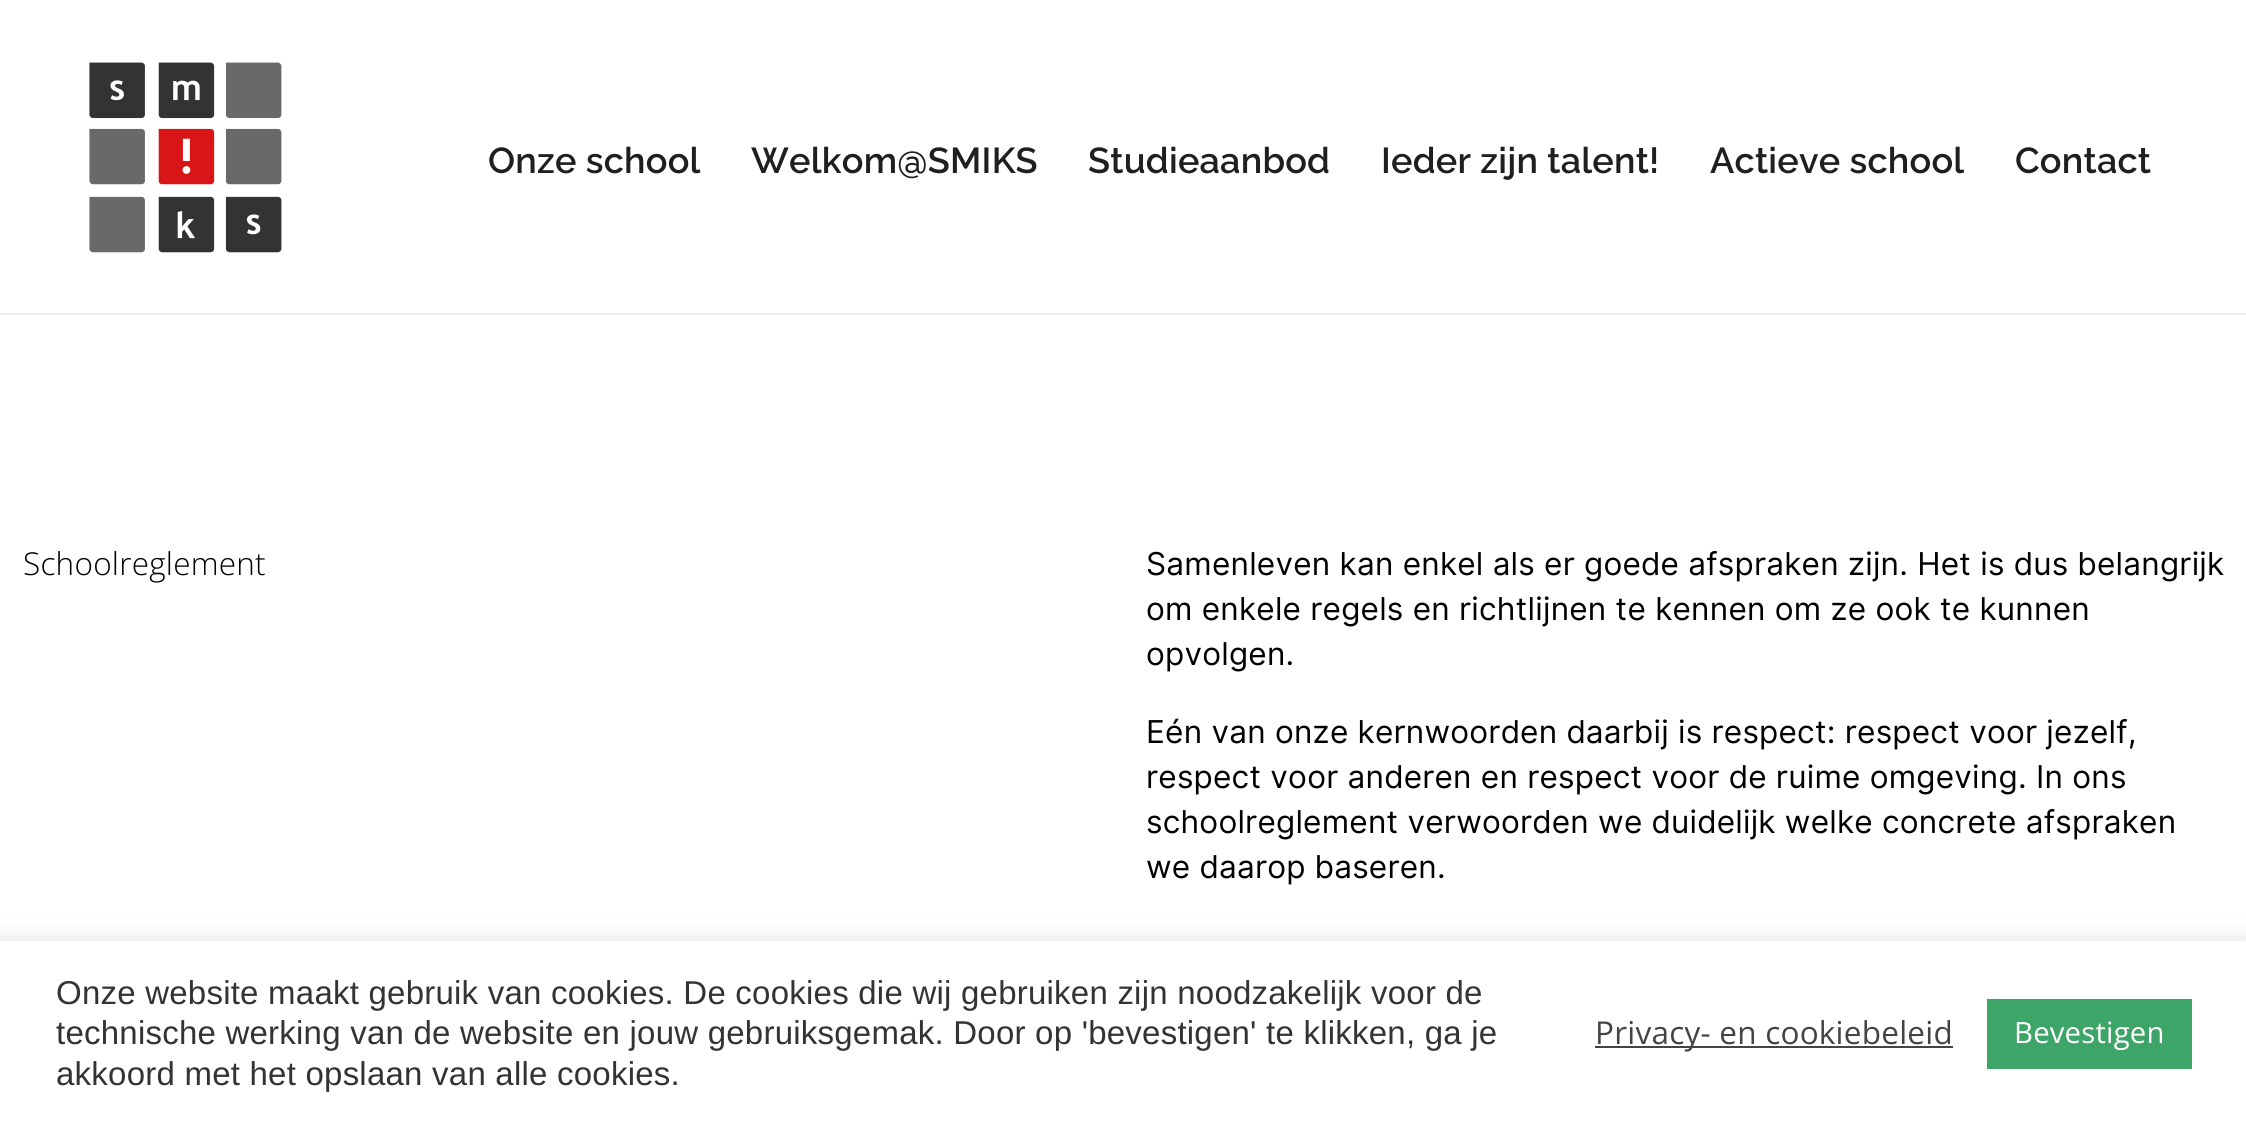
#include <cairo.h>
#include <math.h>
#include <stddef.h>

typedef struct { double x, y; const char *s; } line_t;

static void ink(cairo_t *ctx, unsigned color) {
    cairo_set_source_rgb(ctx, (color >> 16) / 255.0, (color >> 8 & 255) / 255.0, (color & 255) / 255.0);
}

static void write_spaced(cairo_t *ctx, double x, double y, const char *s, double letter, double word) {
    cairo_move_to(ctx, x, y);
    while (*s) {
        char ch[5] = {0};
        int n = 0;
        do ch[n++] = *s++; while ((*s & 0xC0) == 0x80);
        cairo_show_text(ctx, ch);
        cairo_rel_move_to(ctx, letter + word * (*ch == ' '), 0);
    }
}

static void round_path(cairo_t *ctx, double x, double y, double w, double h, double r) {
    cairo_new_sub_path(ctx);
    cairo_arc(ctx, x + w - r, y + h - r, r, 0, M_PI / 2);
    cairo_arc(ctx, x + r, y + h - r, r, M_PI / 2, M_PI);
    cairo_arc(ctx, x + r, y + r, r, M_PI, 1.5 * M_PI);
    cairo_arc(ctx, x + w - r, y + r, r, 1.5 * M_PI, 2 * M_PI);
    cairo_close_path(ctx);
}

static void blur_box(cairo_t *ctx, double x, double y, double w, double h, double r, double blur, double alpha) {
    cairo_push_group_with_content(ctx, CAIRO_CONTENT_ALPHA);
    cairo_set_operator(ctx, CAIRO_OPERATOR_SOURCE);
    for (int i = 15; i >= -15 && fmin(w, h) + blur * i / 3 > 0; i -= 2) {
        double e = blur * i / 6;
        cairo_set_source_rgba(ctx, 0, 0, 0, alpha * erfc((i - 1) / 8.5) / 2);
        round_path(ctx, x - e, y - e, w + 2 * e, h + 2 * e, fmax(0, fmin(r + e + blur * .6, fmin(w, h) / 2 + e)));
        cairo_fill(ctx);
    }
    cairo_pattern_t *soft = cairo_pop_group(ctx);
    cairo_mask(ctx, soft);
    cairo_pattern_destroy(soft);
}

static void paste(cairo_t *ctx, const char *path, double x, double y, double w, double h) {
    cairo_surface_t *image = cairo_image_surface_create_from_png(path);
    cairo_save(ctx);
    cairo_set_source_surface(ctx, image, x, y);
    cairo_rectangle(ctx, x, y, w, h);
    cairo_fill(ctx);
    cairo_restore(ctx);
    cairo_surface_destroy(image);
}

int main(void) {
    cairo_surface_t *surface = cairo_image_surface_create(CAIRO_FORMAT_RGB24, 2246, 1125);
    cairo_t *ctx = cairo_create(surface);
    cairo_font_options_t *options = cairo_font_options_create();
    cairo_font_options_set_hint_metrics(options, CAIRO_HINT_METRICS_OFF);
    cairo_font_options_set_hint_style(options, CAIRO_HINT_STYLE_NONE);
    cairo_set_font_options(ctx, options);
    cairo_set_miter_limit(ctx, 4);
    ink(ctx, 0xFFFFFF);
    cairo_paint(ctx);
    ink(ctx, 0xEDEDEF);
    cairo_rectangle(ctx, 0, 313, 2246, 2);
    cairo_fill(ctx);
    paste(ctx, "media/1.png", 89, 62, 193, 191);
    cairo_select_font_face(ctx, "Raleway SemiBold", CAIRO_FONT_SLANT_NORMAL, CAIRO_FONT_WEIGHT_NORMAL);
    cairo_set_font_size(ctx, 36);
    ink(ctx, 0x1F1F1F);
    {
        static const line_t items[] = {
            {488, 173, "Onze school"},
            {751, 173, "Welkom@SMIKS"},
            {1088, 173, "Studieaanbod"},
            {1381, 173, "Ieder zijn talent!"},
            {1710, 173, "Actieve school"},
            {2015, 173, "Contact"},
        };
        for (size_t i = 0; i < sizeof items / sizeof *items; i++) {
            write_spaced(ctx, items[i].x, items[i].y, items[i].s, 0.23, 0);
        }
    }
    cairo_select_font_face(ctx, "Open Sans Light", CAIRO_FONT_SLANT_NORMAL, CAIRO_FONT_WEIGHT_NORMAL);
    cairo_set_font_size(ctx, 31.5);
    ink(ctx, 0x000000);
    write_spaced(ctx, 23, 575, "Schoolreglement", 0.23, 0);
    cairo_select_font_face(ctx, "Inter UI", CAIRO_FONT_SLANT_NORMAL, CAIRO_FONT_WEIGHT_NORMAL);
    {
        static const line_t items[] = {
            {1146, 575, "Samenleven kan enkel als er goede afspraken zijn. Het is dus belangrijk"},
            {1146, 620, "om enkele regels en richtlijnen te kennen om ze ook te kunnen"},
            {1146, 665, "opvolgen."},
            {1146, 743, "Eén van onze kernwoorden daarbij is respect: respect voor jezelf,"},
            {1146, 788, "respect voor anderen en respect voor de ruime omgeving. In ons"},
            {1146, 833, "schoolreglement verwoorden we duidelijk welke concrete afspraken"},
            {1146, 878, "we daarop baseren."},
        };
        for (size_t i = 0; i < sizeof items / sizeof *items; i++) {
            write_spaced(ctx, items[i].x, items[i].y, items[i].s, 0.23, 0);
        }
    }
    ink(ctx, 0xACABAB);
    blur_box(ctx, 0, 938, 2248, 185, 0, 11, 0.3);
    ink(ctx, 0xFFFFFF);
    cairo_rectangle(ctx, 0, 941, 2246, 184);
    cairo_fill(ctx);
    cairo_select_font_face(ctx, "Liberation Sans", CAIRO_FONT_SLANT_NORMAL, CAIRO_FONT_WEIGHT_NORMAL);
    cairo_set_font_size(ctx, 33);
    ink(ctx, 0x333333);
    {
        static const line_t items[] = {
            {56, 1004, "Onze website maakt gebruik van cookies. De cookies die wij gebruiken zijn noodzakelijk voor de"},
            {56, 1044, "technische werking van de website en jouw gebruiksgemak. Door op 'bevestigen' te klikken, ga je"},
            {56, 1085, "akkoord met het opslaan van alle cookies."},
        };
        for (size_t i = 0; i < sizeof items / sizeof *items; i++) {
            write_spaced(ctx, items[i].x, items[i].y, items[i].s, 0.23, 0);
        }
    }
    ink(ctx, 0x444444);
    cairo_rectangle(ctx, 1595, 1046, 358, 2);
    cairo_fill(ctx);
    cairo_select_font_face(ctx, "Open Sans", CAIRO_FONT_SLANT_NORMAL, CAIRO_FONT_WEIGHT_NORMAL);
    cairo_set_font_size(ctx, 31.5);
    write_spaced(ctx, 1595, 1044, "Privacy- en cookiebeleid", 0.23, 0);
    ink(ctx, 0x3EA568);
    cairo_rectangle(ctx, 1987, 999, 205, 70);
    cairo_fill(ctx);
    cairo_set_font_size(ctx, 29.25);
    ink(ctx, 0xFFFFFF);
    write_spaced(ctx, 2014, 1043, "Bevestigen", 0.23, 0);
    cairo_surface_write_to_png(surface, "image.png");
    cairo_font_options_destroy(options);
    cairo_destroy(ctx);
    cairo_surface_destroy(surface);
    return 0;
}
